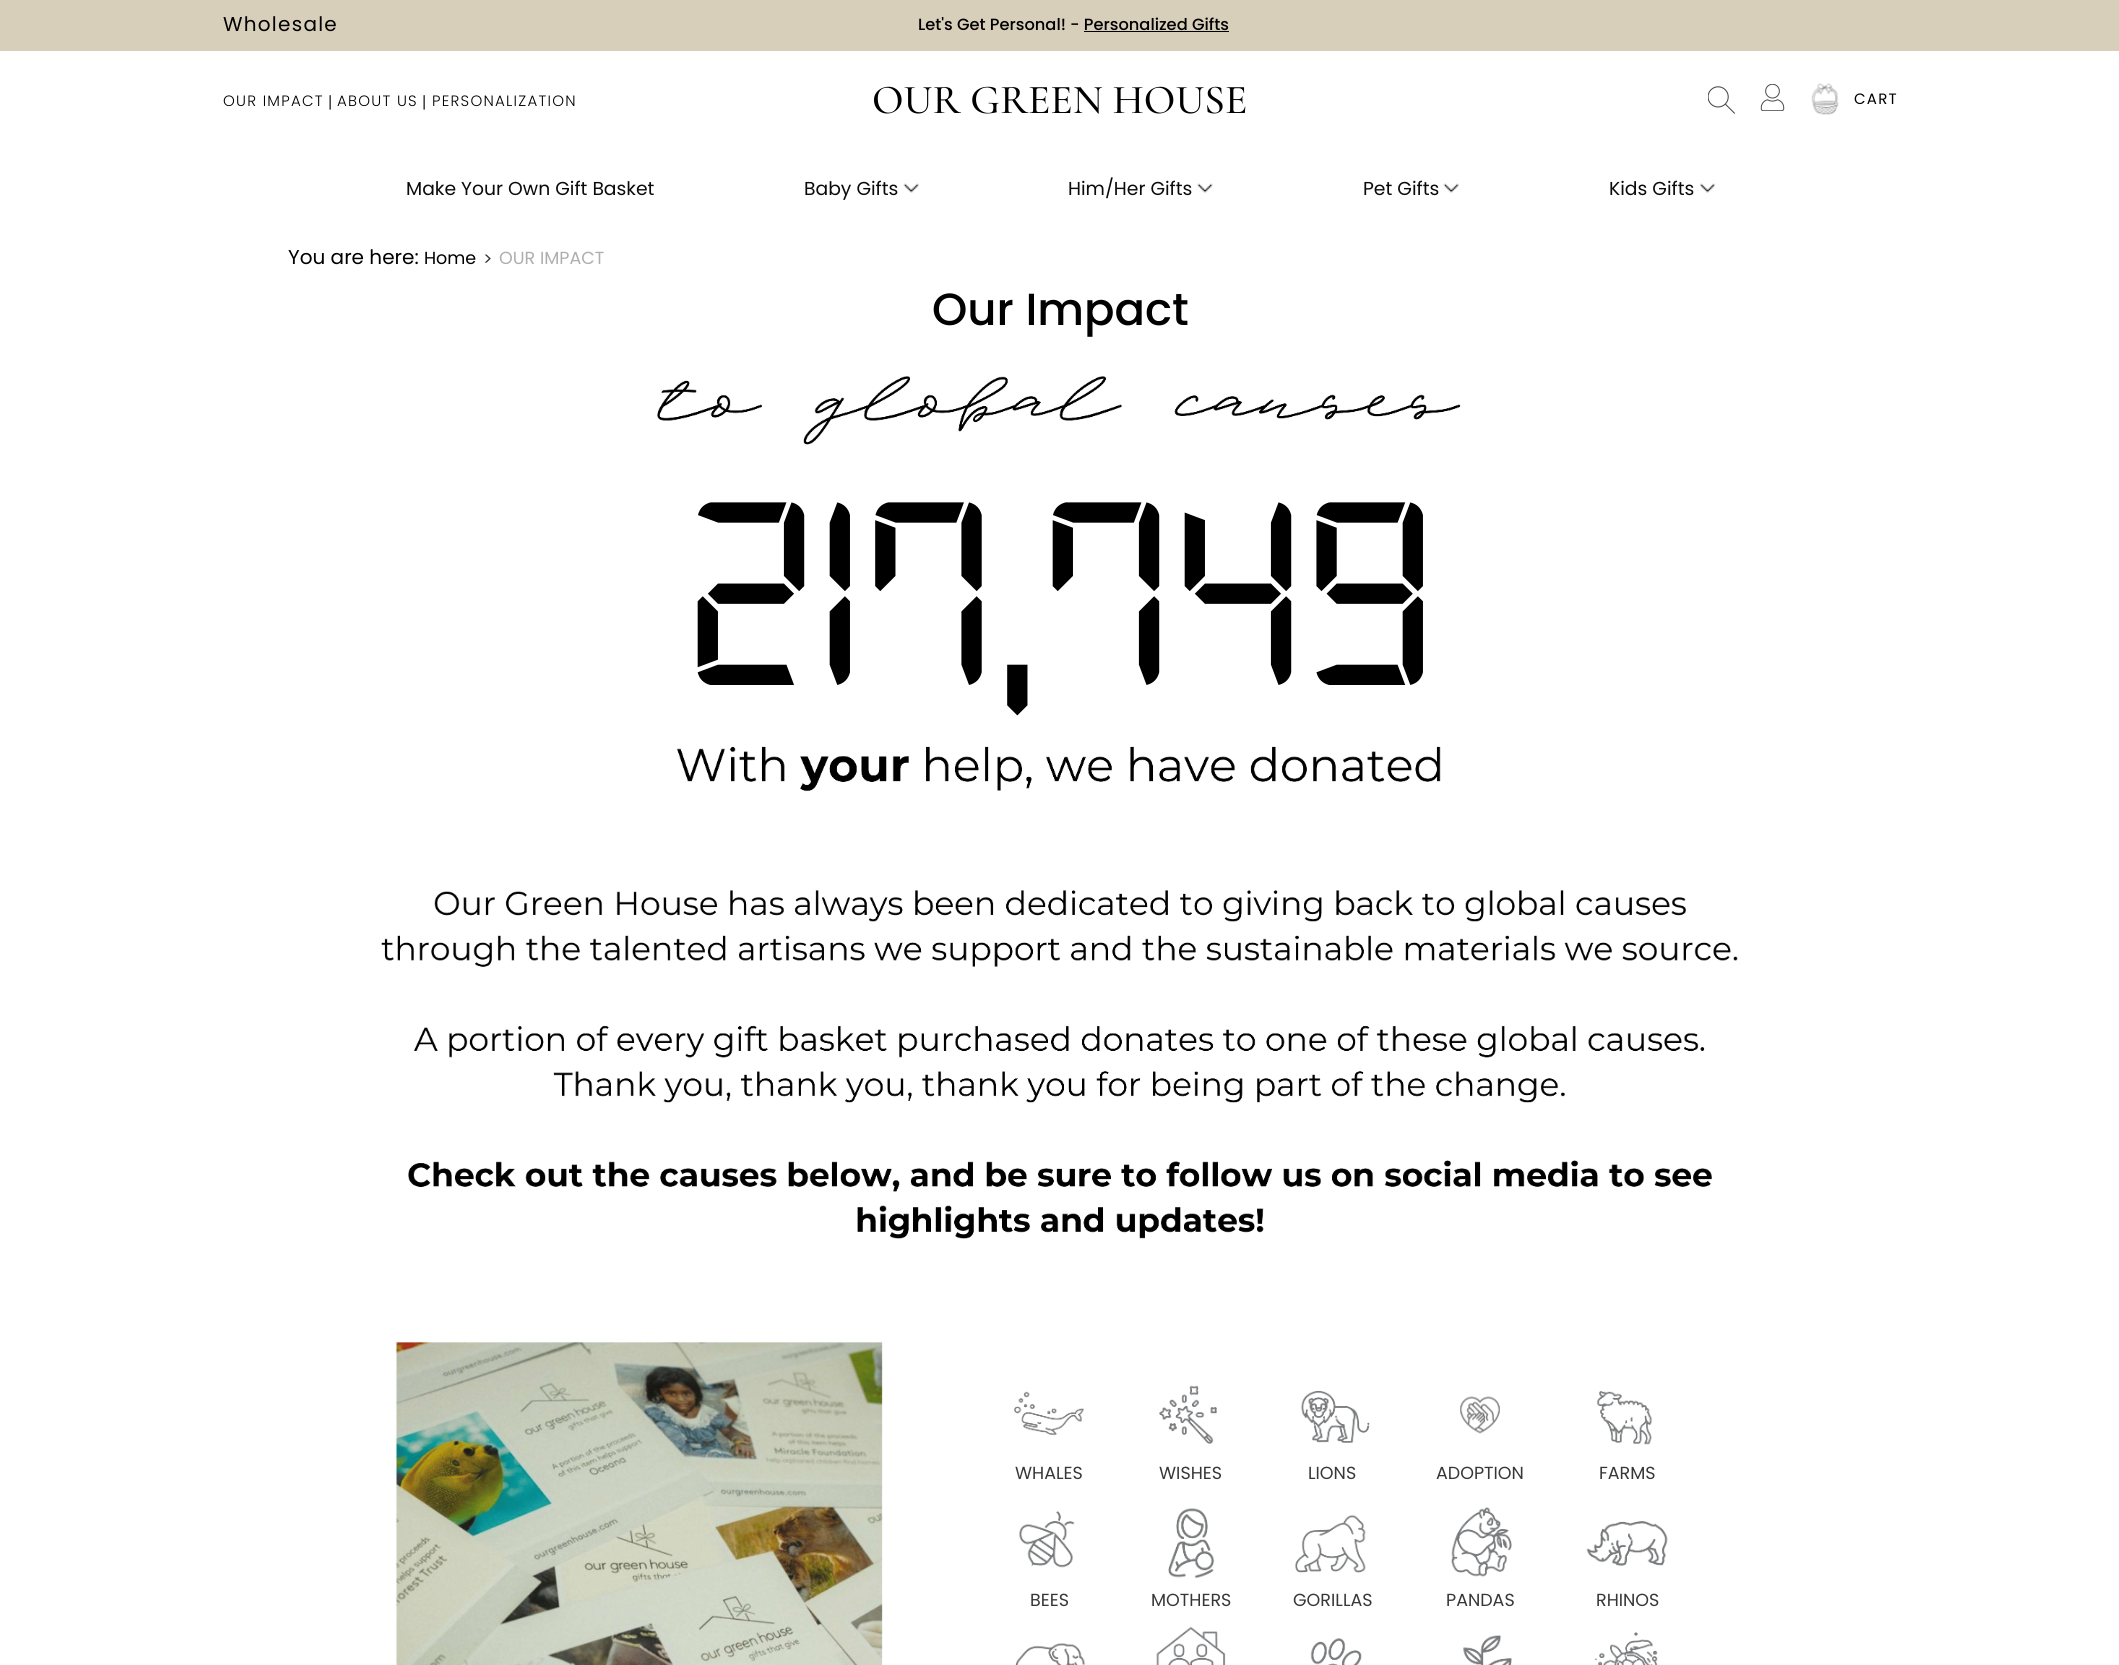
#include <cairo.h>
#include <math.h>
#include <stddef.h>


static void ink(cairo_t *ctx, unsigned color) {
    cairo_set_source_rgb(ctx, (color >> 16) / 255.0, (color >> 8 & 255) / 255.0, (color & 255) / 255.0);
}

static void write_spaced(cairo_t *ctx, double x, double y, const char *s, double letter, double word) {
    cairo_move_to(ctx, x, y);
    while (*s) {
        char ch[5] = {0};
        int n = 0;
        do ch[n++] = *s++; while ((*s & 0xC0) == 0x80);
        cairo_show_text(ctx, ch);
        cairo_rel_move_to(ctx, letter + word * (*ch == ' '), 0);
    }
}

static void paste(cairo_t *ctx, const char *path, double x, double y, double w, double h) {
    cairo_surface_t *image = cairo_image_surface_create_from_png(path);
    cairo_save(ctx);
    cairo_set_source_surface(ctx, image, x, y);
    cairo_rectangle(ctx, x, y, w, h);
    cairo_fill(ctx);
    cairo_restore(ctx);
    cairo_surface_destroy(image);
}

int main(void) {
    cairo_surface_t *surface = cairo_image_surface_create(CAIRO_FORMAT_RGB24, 2119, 1665);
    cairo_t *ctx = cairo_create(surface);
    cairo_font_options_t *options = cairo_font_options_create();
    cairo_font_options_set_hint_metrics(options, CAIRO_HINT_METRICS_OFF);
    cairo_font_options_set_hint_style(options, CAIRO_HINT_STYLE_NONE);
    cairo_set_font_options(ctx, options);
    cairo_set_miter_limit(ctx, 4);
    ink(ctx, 0xFFFFFF);
    cairo_paint(ctx);
    ink(ctx, 0xD8CFBB);
    cairo_rectangle(ctx, 0, 0, 2119, 51);
    cairo_fill(ctx);
    cairo_select_font_face(ctx, "Poppins", CAIRO_FONT_SLANT_NORMAL, CAIRO_FONT_WEIGHT_NORMAL);
    cairo_set_font_size(ctx, 20);
    ink(ctx, 0x000000);
    write_spaced(ctx, 223, 31, "Wholesale", 1.25, 0);
    cairo_select_font_face(ctx, "Poppins Medium", CAIRO_FONT_SLANT_NORMAL, CAIRO_FONT_WEIGHT_NORMAL);
    cairo_set_font_size(ctx, 16.25);
    cairo_move_to(ctx, 918, 30);
    cairo_show_text(ctx, "Let's Get Personal! - Personalized Gifts");
    cairo_rectangle(ctx, 1084, 31, 145, 1);
    cairo_fill(ctx);
    cairo_select_font_face(ctx, "Poppins Light", CAIRO_FONT_SLANT_NORMAL, CAIRO_FONT_WEIGHT_NORMAL);
    cairo_set_font_size(ctx, 15);
    write_spaced(ctx, 223, 106, "OUR IMPACT", 1.25, 0);
    cairo_set_font_size(ctx, 16.25);
    write_spaced(ctx, 328, 108, "|", 1.25, 0);
    cairo_set_font_size(ctx, 15);
    write_spaced(ctx, 337, 106, "ABOUT US", 1.25, 0);
    cairo_set_font_size(ctx, 16.25);
    write_spaced(ctx, 422, 108, "|", 1.25, 0);
    cairo_set_font_size(ctx, 15);
    write_spaced(ctx, 432, 106, "PERSONALIZATION", 1.25, 0);
    cairo_select_font_face(ctx, "Cormorant Garamond Medium", CAIRO_FONT_SLANT_NORMAL, CAIRO_FONT_WEIGHT_NORMAL);
    cairo_set_font_size(ctx, 41.25);
    cairo_move_to(ctx, 872, 113);
    cairo_show_text(ctx, "OUR GREEN HOUSE");
    paste(ctx, "media/1.png", 1708, 86, 27, 28);
    paste(ctx, "media/2.png", 1760, 84, 25, 27);
    paste(ctx, "media/3.png", 1811, 83, 28, 32);
    cairo_select_font_face(ctx, "Poppins", CAIRO_FONT_SLANT_NORMAL, CAIRO_FONT_WEIGHT_NORMAL);
    cairo_set_font_size(ctx, 15);
    write_spaced(ctx, 1854, 104, "CART", 1.25, 0);
    cairo_set_font_size(ctx, 18.75);
    ink(ctx, 0x0B0B0B);
    cairo_move_to(ctx, 406, 195);
    cairo_show_text(ctx, "Make Your Own Gift Basket");
    cairo_move_to(ctx, 804, 195);
    cairo_show_text(ctx, "Baby Gifts");
    paste(ctx, "media/4.png", 903, 183, 16, 10);
    cairo_move_to(ctx, 1068, 195);
    cairo_show_text(ctx, "Him/Her Gifts");
    paste(ctx, "media/5.png", 1197, 183, 16, 10);
    cairo_move_to(ctx, 1363, 195);
    cairo_show_text(ctx, "Pet Gifts");
    paste(ctx, "media/6.png", 1443, 183, 16, 10);
    cairo_move_to(ctx, 1609, 195);
    cairo_show_text(ctx, "Kids Gifts");
    paste(ctx, "media/7.png", 1700, 183, 15, 10);
    cairo_set_font_size(ctx, 20);
    ink(ctx, 0x000000);
    cairo_move_to(ctx, 288, 264);
    cairo_show_text(ctx, "You are here:");
    cairo_set_font_size(ctx, 17.5);
    cairo_move_to(ctx, 424, 264);
    cairo_show_text(ctx, "Home");
    ink(ctx, 0x373737);
    cairo_move_to(ctx, 483, 265);
    cairo_show_text(ctx, ">");
    ink(ctx, 0xAEAEAE);
    cairo_move_to(ctx, 499, 264);
    cairo_show_text(ctx, "OUR IMPACT");
    cairo_select_font_face(ctx, "Poppins Medium", CAIRO_FONT_SLANT_NORMAL, CAIRO_FONT_WEIGHT_NORMAL);
    cairo_set_font_size(ctx, 45);
    ink(ctx, 0x000000);
    cairo_move_to(ctx, 932, 325);
    cairo_show_text(ctx, "Our Impact");
    paste(ctx, "media/8.png", 657, 376, 804, 69);
    cairo_select_font_face(ctx, "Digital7", CAIRO_FONT_SLANT_NORMAL, CAIRO_FONT_WEIGHT_NORMAL);
    cairo_set_font_size(ctx, 279);
    cairo_move_to(ctx, 685, 685);
    cairo_show_text(ctx, "217,749");
    paste(ctx, "media/9.png", 676, 746, 765, 46);
    paste(ctx, "media/10.png", 381, 890, 1357, 349);
    paste(ctx, "media/11.png", 395, 1341, 488, 324);
    paste(ctx, "media/12.png", 1014, 1391, 71, 45);
    cairo_select_font_face(ctx, "Poppins", CAIRO_FONT_SLANT_NORMAL, CAIRO_FONT_WEIGHT_NORMAL);
    cairo_set_font_size(ctx, 17.5);
    ink(ctx, 0x373737);
    cairo_move_to(ctx, 1015, 1479);
    cairo_show_text(ctx, "WHALES");
    paste(ctx, "media/13.png", 1159, 1385, 58, 59);
    cairo_move_to(ctx, 1159, 1479);
    cairo_show_text(ctx, "WISHES");
    paste(ctx, "media/14.png", 1301, 1390, 69, 53);
    cairo_move_to(ctx, 1308, 1479);
    cairo_show_text(ctx, "LIONS");
    paste(ctx, "media/15.png", 1459, 1396, 41, 38);
    cairo_move_to(ctx, 1436, 1479);
    cairo_show_text(ctx, "ADOPTION");
    paste(ctx, "media/16.png", 1596, 1391, 57, 54);
    cairo_move_to(ctx, 1599, 1479);
    cairo_show_text(ctx, "FARMS");
    paste(ctx, "media/17.png", 1019, 1511, 56, 57);
    cairo_move_to(ctx, 1030, 1606);
    cairo_show_text(ctx, "BEES");
    paste(ctx, "media/18.png", 1168, 1508, 47, 71);
    cairo_move_to(ctx, 1151, 1606);
    cairo_show_text(ctx, "MOTHERS");
    paste(ctx, "media/19.png", 1295, 1514, 71, 59);
    cairo_move_to(ctx, 1293, 1606);
    cairo_show_text(ctx, "GORILLAS");
    paste(ctx, "media/20.png", 1451, 1507, 61, 70);
    cairo_move_to(ctx, 1446, 1606);
    cairo_show_text(ctx, "PANDAS");
    paste(ctx, "media/21.png", 1586, 1521, 82, 45);
    cairo_move_to(ctx, 1596, 1606);
    cairo_show_text(ctx, "RHINOS");
    paste(ctx, "media/22.png", 1015, 1643, 71, 22);
    paste(ctx, "media/23.png", 1156, 1626, 70, 39);
    paste(ctx, "media/24.png", 1310, 1638, 52, 27);
    paste(ctx, "media/25.png", 1463, 1635, 49, 30);
    paste(ctx, "media/26.png", 1594, 1632, 64, 33);
    cairo_surface_write_to_png(surface, "image.png");
    cairo_font_options_destroy(options);
    cairo_destroy(ctx);
    cairo_surface_destroy(surface);
    return 0;
}
